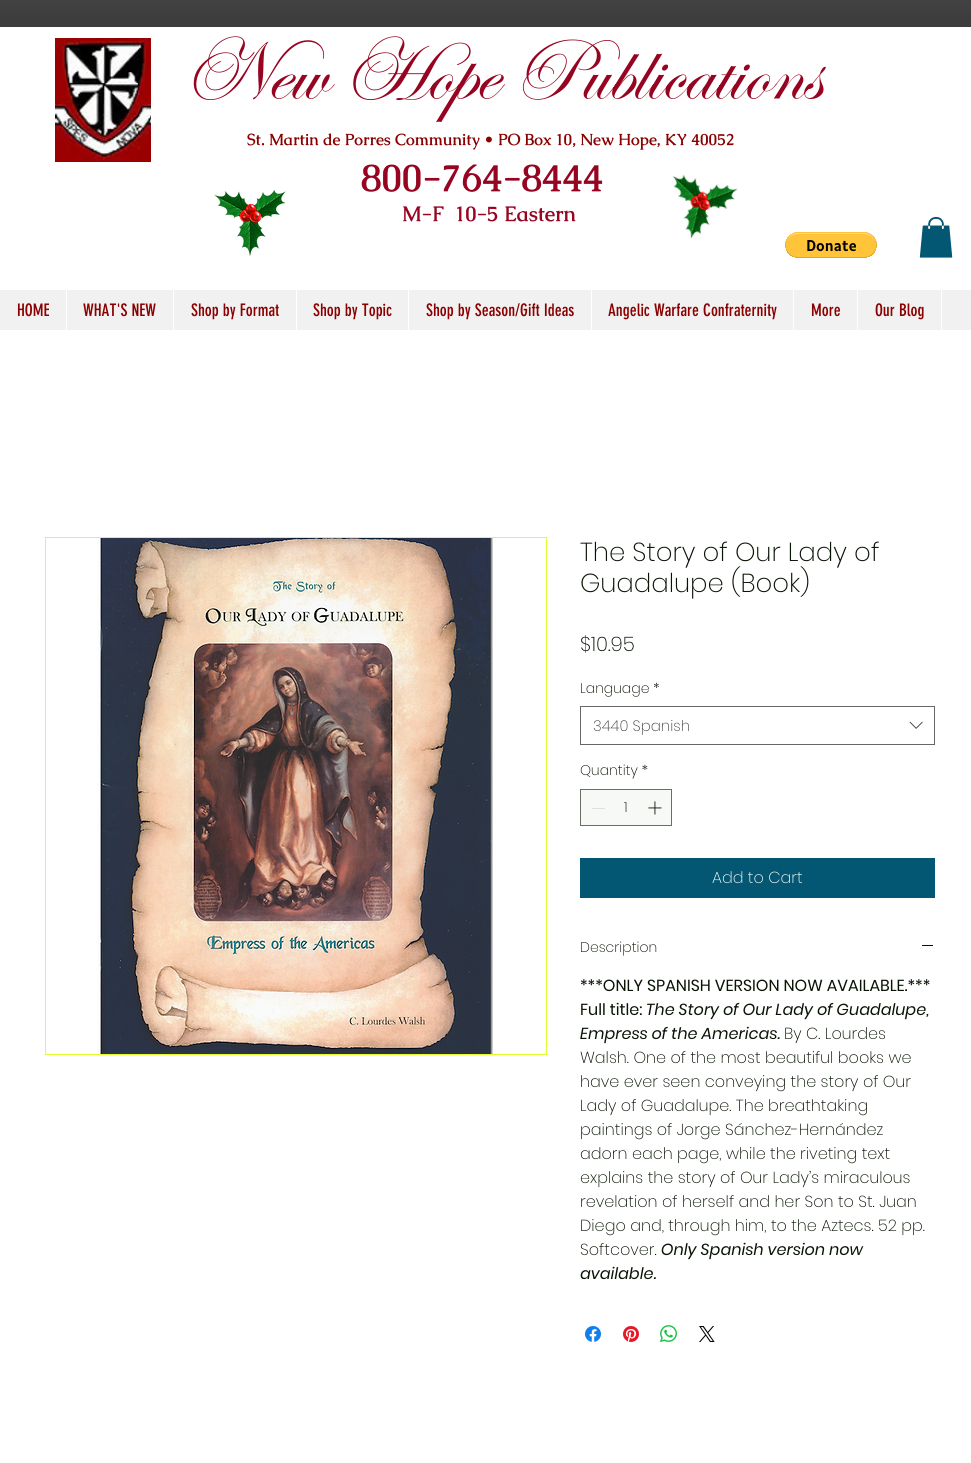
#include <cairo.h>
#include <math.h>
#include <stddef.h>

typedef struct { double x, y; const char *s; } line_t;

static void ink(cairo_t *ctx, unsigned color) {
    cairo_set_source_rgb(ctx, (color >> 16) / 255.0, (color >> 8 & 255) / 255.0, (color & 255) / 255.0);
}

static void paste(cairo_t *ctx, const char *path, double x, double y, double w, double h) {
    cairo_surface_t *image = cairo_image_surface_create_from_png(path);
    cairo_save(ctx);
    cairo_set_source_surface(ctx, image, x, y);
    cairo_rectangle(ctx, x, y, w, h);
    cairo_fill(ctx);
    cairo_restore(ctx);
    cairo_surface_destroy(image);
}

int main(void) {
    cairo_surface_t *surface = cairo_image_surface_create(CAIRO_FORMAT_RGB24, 971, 1463);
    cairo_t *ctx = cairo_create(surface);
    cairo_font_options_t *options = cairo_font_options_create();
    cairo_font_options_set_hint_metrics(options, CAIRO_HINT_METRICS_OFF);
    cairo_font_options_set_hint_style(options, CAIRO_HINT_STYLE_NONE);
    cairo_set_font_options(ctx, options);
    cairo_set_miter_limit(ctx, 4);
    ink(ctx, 0xFFFFFF);
    cairo_paint(ctx);
    ink(ctx, 0x000000);
    cairo_rectangle(ctx, 0, 0, 971, 27);
    cairo_fill(ctx);
    paste(ctx, "media/1.png", 0, 0, 971, 27);
    paste(ctx, "media/2.png", 55, 38, 96, 124);
    cairo_select_font_face(ctx, "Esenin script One", CAIRO_FONT_SLANT_NORMAL, CAIRO_FONT_WEIGHT_NORMAL);
    cairo_set_font_size(ctx, 89);
    ink(ctx, 0x960421);
    cairo_move_to(ctx, 183, 98);
    cairo_show_text(ctx, "New Hope Publications");
    cairo_select_font_face(ctx, "Caudex", CAIRO_FONT_SLANT_NORMAL, CAIRO_FONT_WEIGHT_BOLD);
    cairo_set_font_size(ctx, 16);
    ink(ctx, 0x8B0000);
    cairo_move_to(ctx, 247, 145);
    cairo_show_text(ctx, "St. Martin de Porres Community • PO Box 10, New Hope, KY 40052");
    paste(ctx, "media/3.png", 214, 189, 72, 67);
    cairo_set_font_size(ctx, 38);
    ink(ctx, 0x960421);
    cairo_move_to(ctx, 361, 191);
    cairo_show_text(ctx, "800-764-8444");
    cairo_set_font_size(ctx, 21);
    cairo_move_to(ctx, 402, 221);
    cairo_show_text(ctx, "M-F  10-5 Eastern");
    paste(ctx, "media/4.png", 673, 174, 65, 65);
    paste(ctx, "media/5.png", 785, 232, 92, 26);
    paste(ctx, "media/6.png", 919, 217, 34, 41);
    ink(ctx, 0xF1F1F1);
    cairo_rectangle(ctx, 0, 290, 971, 40);
    cairo_fill(ctx);
    cairo_select_font_face(ctx, "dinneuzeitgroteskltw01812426", CAIRO_FONT_SLANT_NORMAL, CAIRO_FONT_WEIGHT_NORMAL);
    cairo_set_font_size(ctx, 17);
    ink(ctx, 0x8B0000);
    cairo_move_to(ctx, 17, 316);
    cairo_show_text(ctx, "HOME");
    ink(ctx, 0xFFFFFF);
    cairo_rectangle(ctx, 66, 290, 1, 40);
    cairo_fill(ctx);
    ink(ctx, 0x8B0000);
    cairo_move_to(ctx, 83, 316);
    cairo_show_text(ctx, "WHAT'S NEW");
    ink(ctx, 0xFFFFFF);
    cairo_rectangle(ctx, 173, 290, 1, 40);
    cairo_fill(ctx);
    ink(ctx, 0x8B0000);
    cairo_move_to(ctx, 191, 316);
    cairo_show_text(ctx, "Shop by Format");
    ink(ctx, 0xFFFFFF);
    cairo_rectangle(ctx, 296, 290, 1, 40);
    cairo_fill(ctx);
    ink(ctx, 0x8B0000);
    cairo_move_to(ctx, 313, 316);
    cairo_show_text(ctx, "Shop by Topic");
    ink(ctx, 0xFFFFFF);
    cairo_rectangle(ctx, 408, 290, 1, 40);
    cairo_fill(ctx);
    ink(ctx, 0x8B0000);
    cairo_move_to(ctx, 426, 316);
    cairo_show_text(ctx, "Shop by Season/Gift Ideas");
    ink(ctx, 0xFFFFFF);
    cairo_rectangle(ctx, 591, 290, 1, 40);
    cairo_fill(ctx);
    ink(ctx, 0x8B0000);
    cairo_move_to(ctx, 608, 316);
    cairo_show_text(ctx, "Angelic Warfare Confraternity");
    ink(ctx, 0xFFFFFF);
    cairo_rectangle(ctx, 793, 290, 1, 40);
    cairo_fill(ctx);
    ink(ctx, 0x8B0000);
    cairo_move_to(ctx, 811, 316);
    cairo_show_text(ctx, "More");
    ink(ctx, 0xFFFFFF);
    cairo_rectangle(ctx, 857, 290, 1, 40);
    cairo_fill(ctx);
    ink(ctx, 0x8B0000);
    cairo_move_to(ctx, 875, 316);
    cairo_show_text(ctx, "Our Blog");
    ink(ctx, 0xFFFFFF);
    cairo_rectangle(ctx, 941, 290, 1, 40);
    cairo_fill(ctx);
    cairo_rectangle(ctx, 45.5, 537.5, 501, 517);
    ink(ctx, 0xE0FD2C);
    cairo_set_line_width(ctx, 1);
    cairo_stroke(ctx);
    paste(ctx, "media/7.png", 98, 538, 395, 516);
    cairo_select_font_face(ctx, "Poppins ExtraLight", CAIRO_FONT_SLANT_NORMAL, CAIRO_FONT_WEIGHT_NORMAL);
    cairo_set_font_size(ctx, 26);
    ink(ctx, 0x091405);
    cairo_move_to(ctx, 580, 561);
    cairo_show_text(ctx, "The Story of Our Lady of");
    cairo_move_to(ctx, 580, 592);
    cairo_show_text(ctx, "Guadalupe (Book)");
    cairo_set_font_size(ctx, 20);
    cairo_move_to(ctx, 580, 651);
    cairo_show_text(ctx, "$10.95");
    cairo_set_font_size(ctx, 14);
    cairo_move_to(ctx, 580, 693);
    cairo_show_text(ctx, "Language *");
    cairo_rectangle(ctx, 580.5, 706.5, 354, 38);
    ink(ctx, 0x666666);
    cairo_stroke(ctx);
    cairo_set_font_size(ctx, 15);
    ink(ctx, 0x444444);
    cairo_move_to(ctx, 593, 731);
    cairo_show_text(ctx, "3440 Spanish");
    paste(ctx, "media/8.png", 909, 721, 14, 8);
    cairo_set_font_size(ctx, 14);
    ink(ctx, 0x091405);
    cairo_move_to(ctx, 580, 775);
    cairo_show_text(ctx, "Quantity *");
    ink(ctx, 0xF6F9F5);
    cairo_rectangle(ctx, 580.5, 789.5, 91, 36);
    cairo_fill_preserve(ctx);
    ink(ctx, 0x687065);
    cairo_stroke(ctx);
    ink(ctx, 0xDFE0DE);
    cairo_rectangle(ctx, 592, 808, 13, 1);
    cairo_fill(ctx);
    ink(ctx, 0x091405);
    cairo_move_to(ctx, 624, 812);
    cairo_show_text(ctx, "1");
    paste(ctx, "media/9.png", 648, 801, 14, 14);
    ink(ctx, 0x035772);
    cairo_rectangle(ctx, 580, 858, 355, 40);
    cairo_fill(ctx);
    cairo_set_font_size(ctx, 16);
    ink(ctx, 0xF6F9F5);
    cairo_move_to(ctx, 712, 883);
    cairo_show_text(ctx, "Add to Cart");
    cairo_set_font_size(ctx, 14);
    ink(ctx, 0x091405);
    cairo_move_to(ctx, 580, 952);
    cairo_show_text(ctx, "Description");
    cairo_rectangle(ctx, 922, 945, 11, 1);
    cairo_fill(ctx);
    cairo_select_font_face(ctx, "Poppins", CAIRO_FONT_SLANT_NORMAL, CAIRO_FONT_WEIGHT_NORMAL);
    cairo_set_font_size(ctx, 16);
    cairo_move_to(ctx, 580, 991);
    cairo_show_text(ctx, "***ONLY SPANISH VERSION NOW AVAILABLE.***");
    cairo_move_to(ctx, 580, 1015);
    cairo_show_text(ctx, "Full title:");
    cairo_select_font_face(ctx, "Poppins", CAIRO_FONT_SLANT_ITALIC, CAIRO_FONT_WEIGHT_NORMAL);
    cairo_move_to(ctx, 646, 1015);
    cairo_show_text(ctx, "The Story of Our Lady of Guadalupe,");
    cairo_move_to(ctx, 580, 1039);
    cairo_show_text(ctx, "Empress of the Americas.");
    cairo_select_font_face(ctx, "Poppins ExtraLight", CAIRO_FONT_SLANT_NORMAL, CAIRO_FONT_WEIGHT_NORMAL);
    {
        static const line_t items[] = {
            {784, 1039, "By C. Lourdes"},
            {580, 1063, "Walsh. One of the most beautiful books we"},
            {580, 1087, "have ever seen conveying the story of Our"},
            {580, 1111, "Lady of Guadalupe. The breathtaking"},
            {580, 1135, "paintings of Jorge Sánchez-Hernández"},
            {580, 1159, "adorn each page, while the riveting text"},
            {580, 1183, "explains the story of Our Lady’s miraculous"},
            {580, 1207, "revelation of herself and her Son to St. Juan"},
            {580, 1231, "Diego and, through him, to the Aztecs. 52 pp."},
            {580, 1255, "Softcover."},
        };
        for (size_t i = 0; i < sizeof items / sizeof *items; i++) {
            cairo_move_to(ctx, items[i].x, items[i].y);
            cairo_show_text(ctx, items[i].s);
        }
    }
    cairo_select_font_face(ctx, "Poppins", CAIRO_FONT_SLANT_ITALIC, CAIRO_FONT_WEIGHT_NORMAL);
    cairo_move_to(ctx, 661, 1255);
    cairo_show_text(ctx, "Only Spanish version now");
    cairo_move_to(ctx, 580, 1279);
    cairo_show_text(ctx, "available.");
    paste(ctx, "media/10.png", 585, 1326, 16, 16);
    paste(ctx, "media/11.png", 623, 1326, 16, 16);
    paste(ctx, "media/12.png", 660, 1325, 17, 17);
    paste(ctx, "media/13.png", 699, 1326, 16, 16);
    cairo_surface_write_to_png(surface, "image.png");
    cairo_font_options_destroy(options);
    cairo_destroy(ctx);
    cairo_surface_destroy(surface);
    return 0;
}
